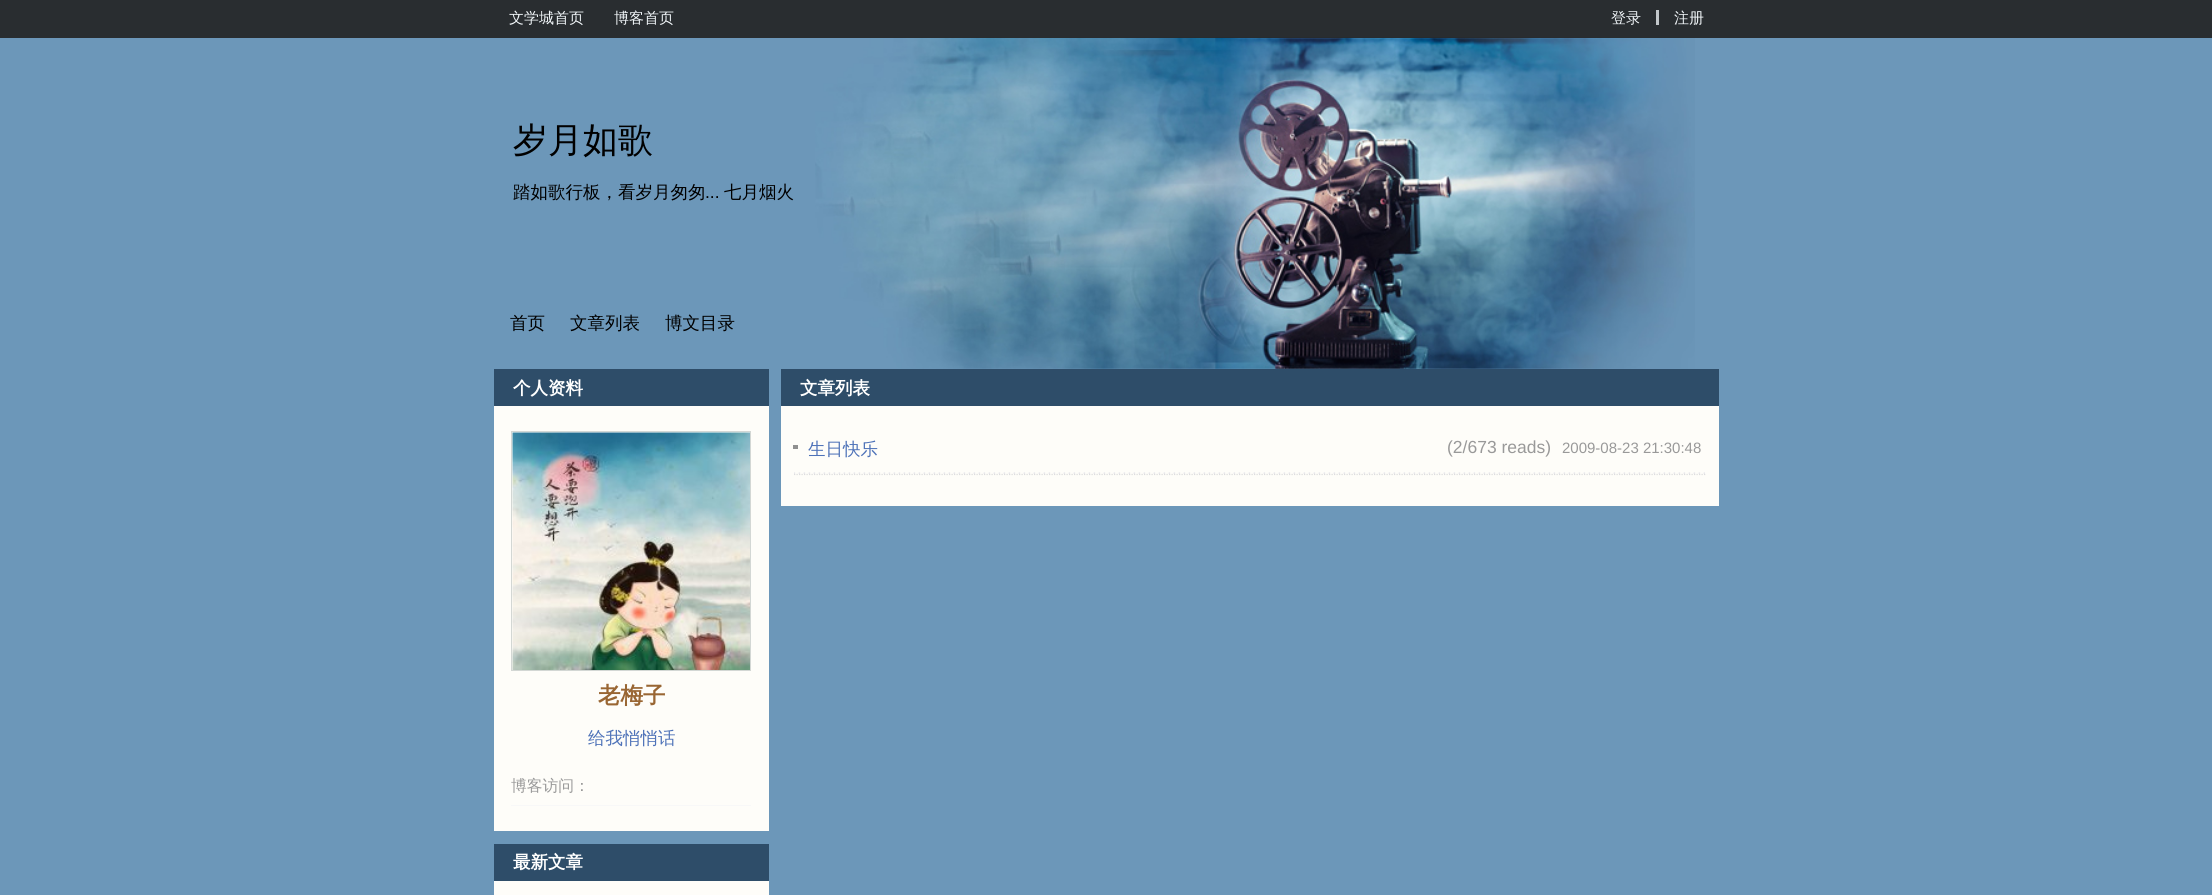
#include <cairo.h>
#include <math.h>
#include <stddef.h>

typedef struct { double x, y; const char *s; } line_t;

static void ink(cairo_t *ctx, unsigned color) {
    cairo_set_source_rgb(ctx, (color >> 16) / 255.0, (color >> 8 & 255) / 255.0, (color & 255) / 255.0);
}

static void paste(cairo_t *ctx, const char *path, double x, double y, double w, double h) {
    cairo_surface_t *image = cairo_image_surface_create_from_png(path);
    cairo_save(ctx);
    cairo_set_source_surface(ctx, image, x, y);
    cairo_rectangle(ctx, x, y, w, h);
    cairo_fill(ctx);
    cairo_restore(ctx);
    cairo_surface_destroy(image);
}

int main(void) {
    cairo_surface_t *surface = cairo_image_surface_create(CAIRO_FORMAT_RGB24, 2212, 895);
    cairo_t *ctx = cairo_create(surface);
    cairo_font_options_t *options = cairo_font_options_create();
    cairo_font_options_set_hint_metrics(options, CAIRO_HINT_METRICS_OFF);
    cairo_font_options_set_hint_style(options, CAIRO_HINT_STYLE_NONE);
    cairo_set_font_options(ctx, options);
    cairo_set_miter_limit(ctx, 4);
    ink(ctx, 0x6C97B9);
    cairo_paint(ctx);
    paste(ctx, "media/1.png", 815, 37, 880, 332);
    cairo_set_source_rgba(ctx, 0.133, 0.133, 0.133, 0.9);
    cairo_rectangle(ctx, 0, 0, 2212, 38);
    cairo_fill(ctx);
    cairo_select_font_face(ctx, "WenQuanYi Zen Hei Medium", CAIRO_FONT_SLANT_NORMAL, CAIRO_FONT_WEIGHT_NORMAL);
    cairo_set_font_size(ctx, 15);
    ink(ctx, 0xF0F5F8);
    {
        static const line_t items[] = {
            {509, 23, "文学城首页"},
            {614, 23, "博客首页"},
            {1611, 23, "登录"},
        };
        for (size_t i = 0; i < sizeof items / sizeof *items; i++) {
            cairo_move_to(ctx, items[i].x, items[i].y);
            cairo_show_text(ctx, items[i].s);
        }
    }
    ink(ctx, 0xC2C7CA);
    cairo_rectangle(ctx, 1656, 10, 3, 15);
    cairo_fill(ctx);
    ink(ctx, 0xF0F5F8);
    cairo_move_to(ctx, 1674, 23);
    cairo_show_text(ctx, "注册");
    cairo_set_font_size(ctx, 35);
    ink(ctx, 0x000000);
    cairo_move_to(ctx, 513, 152);
    cairo_show_text(ctx, "岁月如歌");
    cairo_set_font_size(ctx, 17.5);
    cairo_move_to(ctx, 513, 198);
    cairo_show_text(ctx, "踏如歌行板，看岁月匆匆");
    cairo_select_font_face(ctx, "Liberation Sans", CAIRO_FONT_SLANT_NORMAL, CAIRO_FONT_WEIGHT_NORMAL);
    cairo_move_to(ctx, 705, 198);
    cairo_show_text(ctx, "...");
    cairo_select_font_face(ctx, "WenQuanYi Zen Hei Medium", CAIRO_FONT_SLANT_NORMAL, CAIRO_FONT_WEIGHT_NORMAL);
    {
        static const line_t items[] = {
            {724, 198, "七月烟火"},
            {510, 329, "首页"},
            {570, 329, "文章列表"},
            {665, 329, "博文目录"},
        };
        for (size_t i = 0; i < sizeof items / sizeof *items; i++) {
            cairo_move_to(ctx, items[i].x, items[i].y);
            cairo_show_text(ctx, items[i].s);
        }
    }
    ink(ctx, 0x2E4D69);
    cairo_rectangle(ctx, 494, 369, 275, 37);
    cairo_fill(ctx);
    cairo_select_font_face(ctx, "WenQuanYi Zen Hei", CAIRO_FONT_SLANT_NORMAL, CAIRO_FONT_WEIGHT_BOLD);
    ink(ctx, 0xFFFFFF);
    cairo_move_to(ctx, 513, 394);
    cairo_show_text(ctx, "个人资料");
    ink(ctx, 0xFEFDF9);
    cairo_rectangle(ctx, 494, 406, 275, 425);
    cairo_fill(ctx);
    cairo_rectangle(ctx, 511.5, 431.5, 239, 239);
    ink(ctx, 0xD3D7D4);
    cairo_set_line_width(ctx, 1);
    cairo_stroke(ctx);
    paste(ctx, "media/2.png", 512, 432, 238, 238);
    cairo_set_font_size(ctx, 22.5);
    ink(ctx, 0x996633);
    cairo_move_to(ctx, 598, 703);
    cairo_show_text(ctx, "老梅子");
    cairo_select_font_face(ctx, "WenQuanYi Zen Hei Medium", CAIRO_FONT_SLANT_NORMAL, CAIRO_FONT_WEIGHT_NORMAL);
    cairo_set_font_size(ctx, 17.5);
    ink(ctx, 0x4E72B8);
    cairo_move_to(ctx, 588, 744);
    cairo_show_text(ctx, "给我悄悄话");
    ink(ctx, 0xF8F8F8);
    cairo_rectangle(ctx, 511, 805, 240, 1);
    cairo_fill(ctx);
    cairo_set_font_size(ctx, 15.75);
    ink(ctx, 0x999999);
    cairo_move_to(ctx, 511, 791);
    cairo_show_text(ctx, "博客访问：");
    ink(ctx, 0x2E4D69);
    cairo_rectangle(ctx, 494, 844, 275, 37);
    cairo_fill(ctx);
    cairo_select_font_face(ctx, "WenQuanYi Zen Hei", CAIRO_FONT_SLANT_NORMAL, CAIRO_FONT_WEIGHT_BOLD);
    cairo_set_font_size(ctx, 17.5);
    ink(ctx, 0xFFFFFF);
    cairo_move_to(ctx, 513, 868);
    cairo_show_text(ctx, "最新文章");
    ink(ctx, 0xFEFDF9);
    cairo_rectangle(ctx, 494, 881, 275, 14);
    cairo_fill(ctx);
    ink(ctx, 0x2E4D69);
    cairo_rectangle(ctx, 781, 369, 938, 37);
    cairo_fill(ctx);
    ink(ctx, 0xFFFFFF);
    cairo_move_to(ctx, 800, 394);
    cairo_show_text(ctx, "文章列表");
    ink(ctx, 0xFEFDF9);
    cairo_rectangle(ctx, 781, 406, 938, 100);
    cairo_fill(ctx);
    paste(ctx, "media/3.png", 794, 472, 911, 2);
    cairo_new_path(ctx);
    cairo_move_to(ctx, 794, 474.5);
    cairo_line_to(ctx, 1706, 474.5);
    ink(ctx, 0xDDDDDD);
    cairo_set_line_width(ctx, 1.2);
    cairo_set_dash(ctx, (double[]){1.25, 1.25}, 2, 0);
    cairo_stroke(ctx);
    ink(ctx, 0x909090);
    cairo_rectangle(ctx, 793, 445, 5, 4);
    cairo_fill(ctx);
    cairo_select_font_face(ctx, "WenQuanYi Zen Hei Medium", CAIRO_FONT_SLANT_NORMAL, CAIRO_FONT_WEIGHT_NORMAL);
    ink(ctx, 0x4E72B8);
    cairo_move_to(ctx, 808, 455);
    cairo_show_text(ctx, "生日快乐");
    cairo_select_font_face(ctx, "Liberation Sans", CAIRO_FONT_SLANT_NORMAL, CAIRO_FONT_WEIGHT_NORMAL);
    ink(ctx, 0x999999);
    cairo_move_to(ctx, 1447, 453);
    cairo_show_text(ctx, "(2/673 reads)");
    cairo_set_font_size(ctx, 15);
    cairo_move_to(ctx, 1562, 453);
    cairo_show_text(ctx, "2009-08-23 21:30:48");
    cairo_surface_write_to_png(surface, "image.png");
    cairo_font_options_destroy(options);
    cairo_destroy(ctx);
    cairo_surface_destroy(surface);
    return 0;
}
